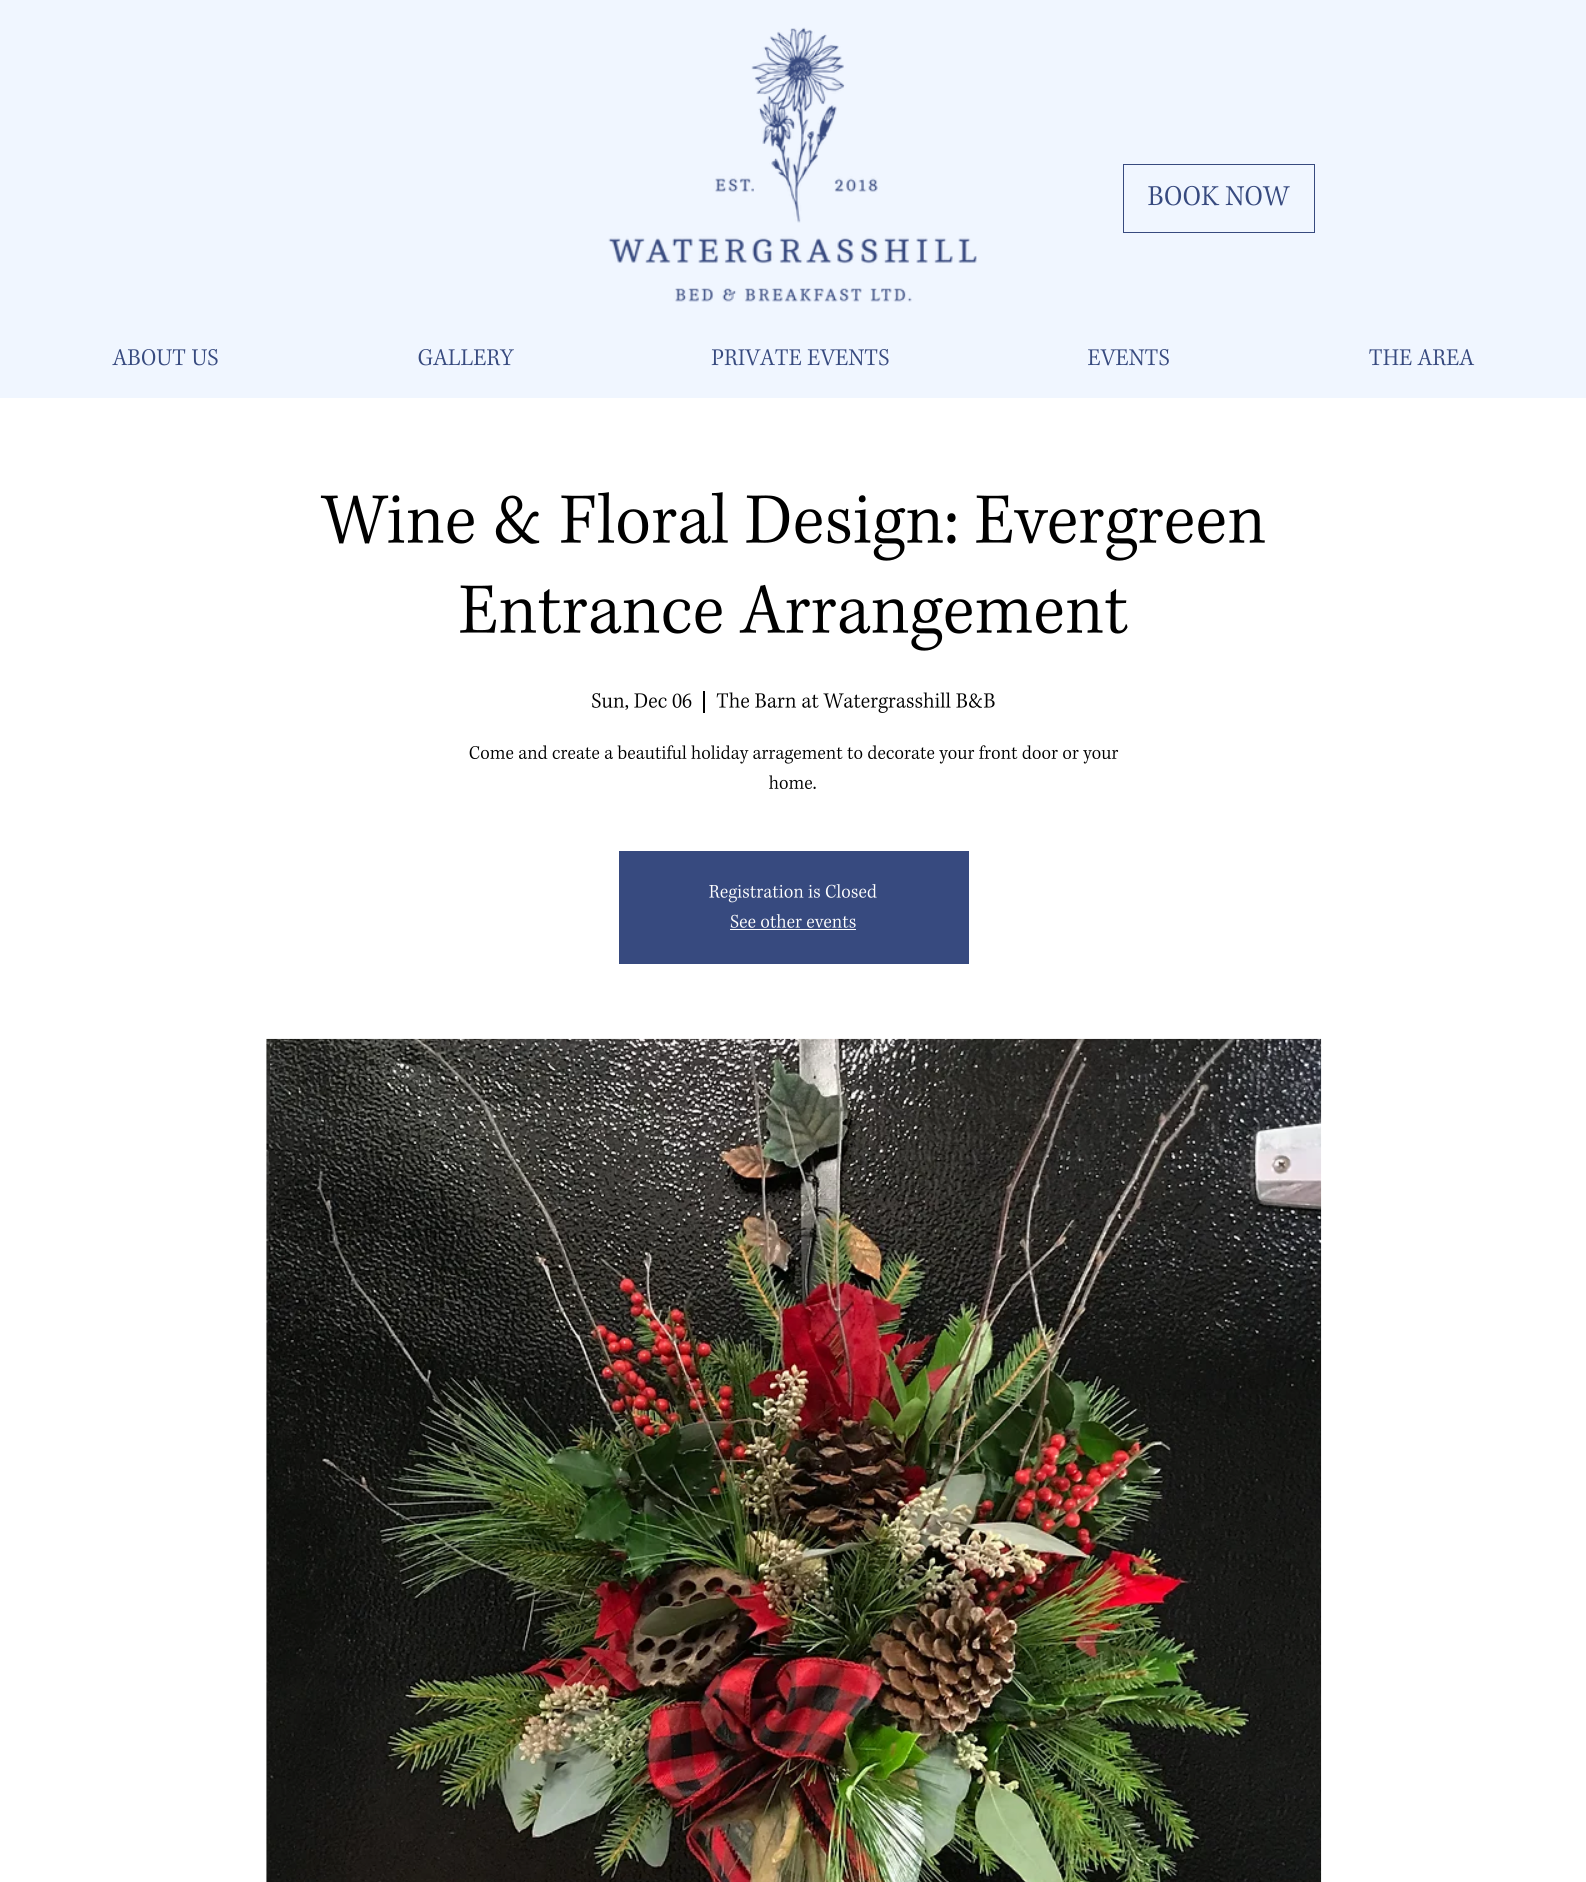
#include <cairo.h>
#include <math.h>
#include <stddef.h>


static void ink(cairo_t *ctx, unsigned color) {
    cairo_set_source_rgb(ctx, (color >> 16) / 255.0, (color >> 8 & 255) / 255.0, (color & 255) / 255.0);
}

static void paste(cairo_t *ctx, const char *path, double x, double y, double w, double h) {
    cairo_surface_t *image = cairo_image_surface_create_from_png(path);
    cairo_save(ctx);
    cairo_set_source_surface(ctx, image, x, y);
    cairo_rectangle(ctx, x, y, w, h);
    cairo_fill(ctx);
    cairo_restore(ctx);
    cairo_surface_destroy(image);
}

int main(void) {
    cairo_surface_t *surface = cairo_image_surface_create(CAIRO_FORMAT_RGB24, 1586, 1882);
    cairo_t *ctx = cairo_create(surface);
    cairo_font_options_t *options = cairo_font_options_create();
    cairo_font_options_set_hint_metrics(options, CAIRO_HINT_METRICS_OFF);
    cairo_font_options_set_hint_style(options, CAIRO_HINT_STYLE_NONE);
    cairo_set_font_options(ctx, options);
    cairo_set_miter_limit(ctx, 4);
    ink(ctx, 0xFFFFFF);
    cairo_paint(ctx);
    ink(ctx, 0xF0F6FF);
    cairo_rectangle(ctx, 0, 0, 1586, 398);
    cairo_fill(ctx);
    paste(ctx, "media/1.png", 608, 27, 369, 275);
    cairo_rectangle(ctx, 1123.5, 164.5, 191, 68);
    ink(ctx, 0x374A7F);
    cairo_set_line_width(ctx, 1);
    cairo_stroke(ctx);
    paste(ctx, "media/2.png", 1148, 185, 142, 21);
    paste(ctx, "media/3.png", 112, 349, 106, 17);
    paste(ctx, "media/4.png", 418, 349, 96, 17);
    paste(ctx, "media/5.png", 711, 349, 178, 17);
    paste(ctx, "media/6.png", 1088, 349, 81, 17);
    paste(ctx, "media/7.png", 1369, 349, 106, 17);
    paste(ctx, "media/8.png", 320, 492, 945, 69);
    paste(ctx, "media/9.png", 460, 584, 668, 67);
    paste(ctx, "media/10.png", 592, 693, 100, 17);
    ink(ctx, 0x000000);
    cairo_rectangle(ctx, 703, 691, 2, 22);
    cairo_fill(ctx);
    paste(ctx, "media/11.png", 716, 692, 279, 21);
    paste(ctx, "media/12.png", 469, 745, 650, 19);
    paste(ctx, "media/13.png", 769, 775, 47, 14);
    ink(ctx, 0x374A7F);
    cairo_rectangle(ctx, 619, 851, 350, 113);
    cairo_fill(ctx);
    paste(ctx, "media/14.png", 709, 884, 168, 19);
    paste(ctx, "media/15.png", 730, 914, 126, 14);
    ink(ctx, 0xFFFFFF);
    cairo_rectangle(ctx, 730, 929, 126, 1);
    cairo_fill(ctx);
    paste(ctx, "media/16.png", 266, 1038, 1056, 844);
    cairo_surface_write_to_png(surface, "image.png");
    cairo_font_options_destroy(options);
    cairo_destroy(ctx);
    cairo_surface_destroy(surface);
    return 0;
}
